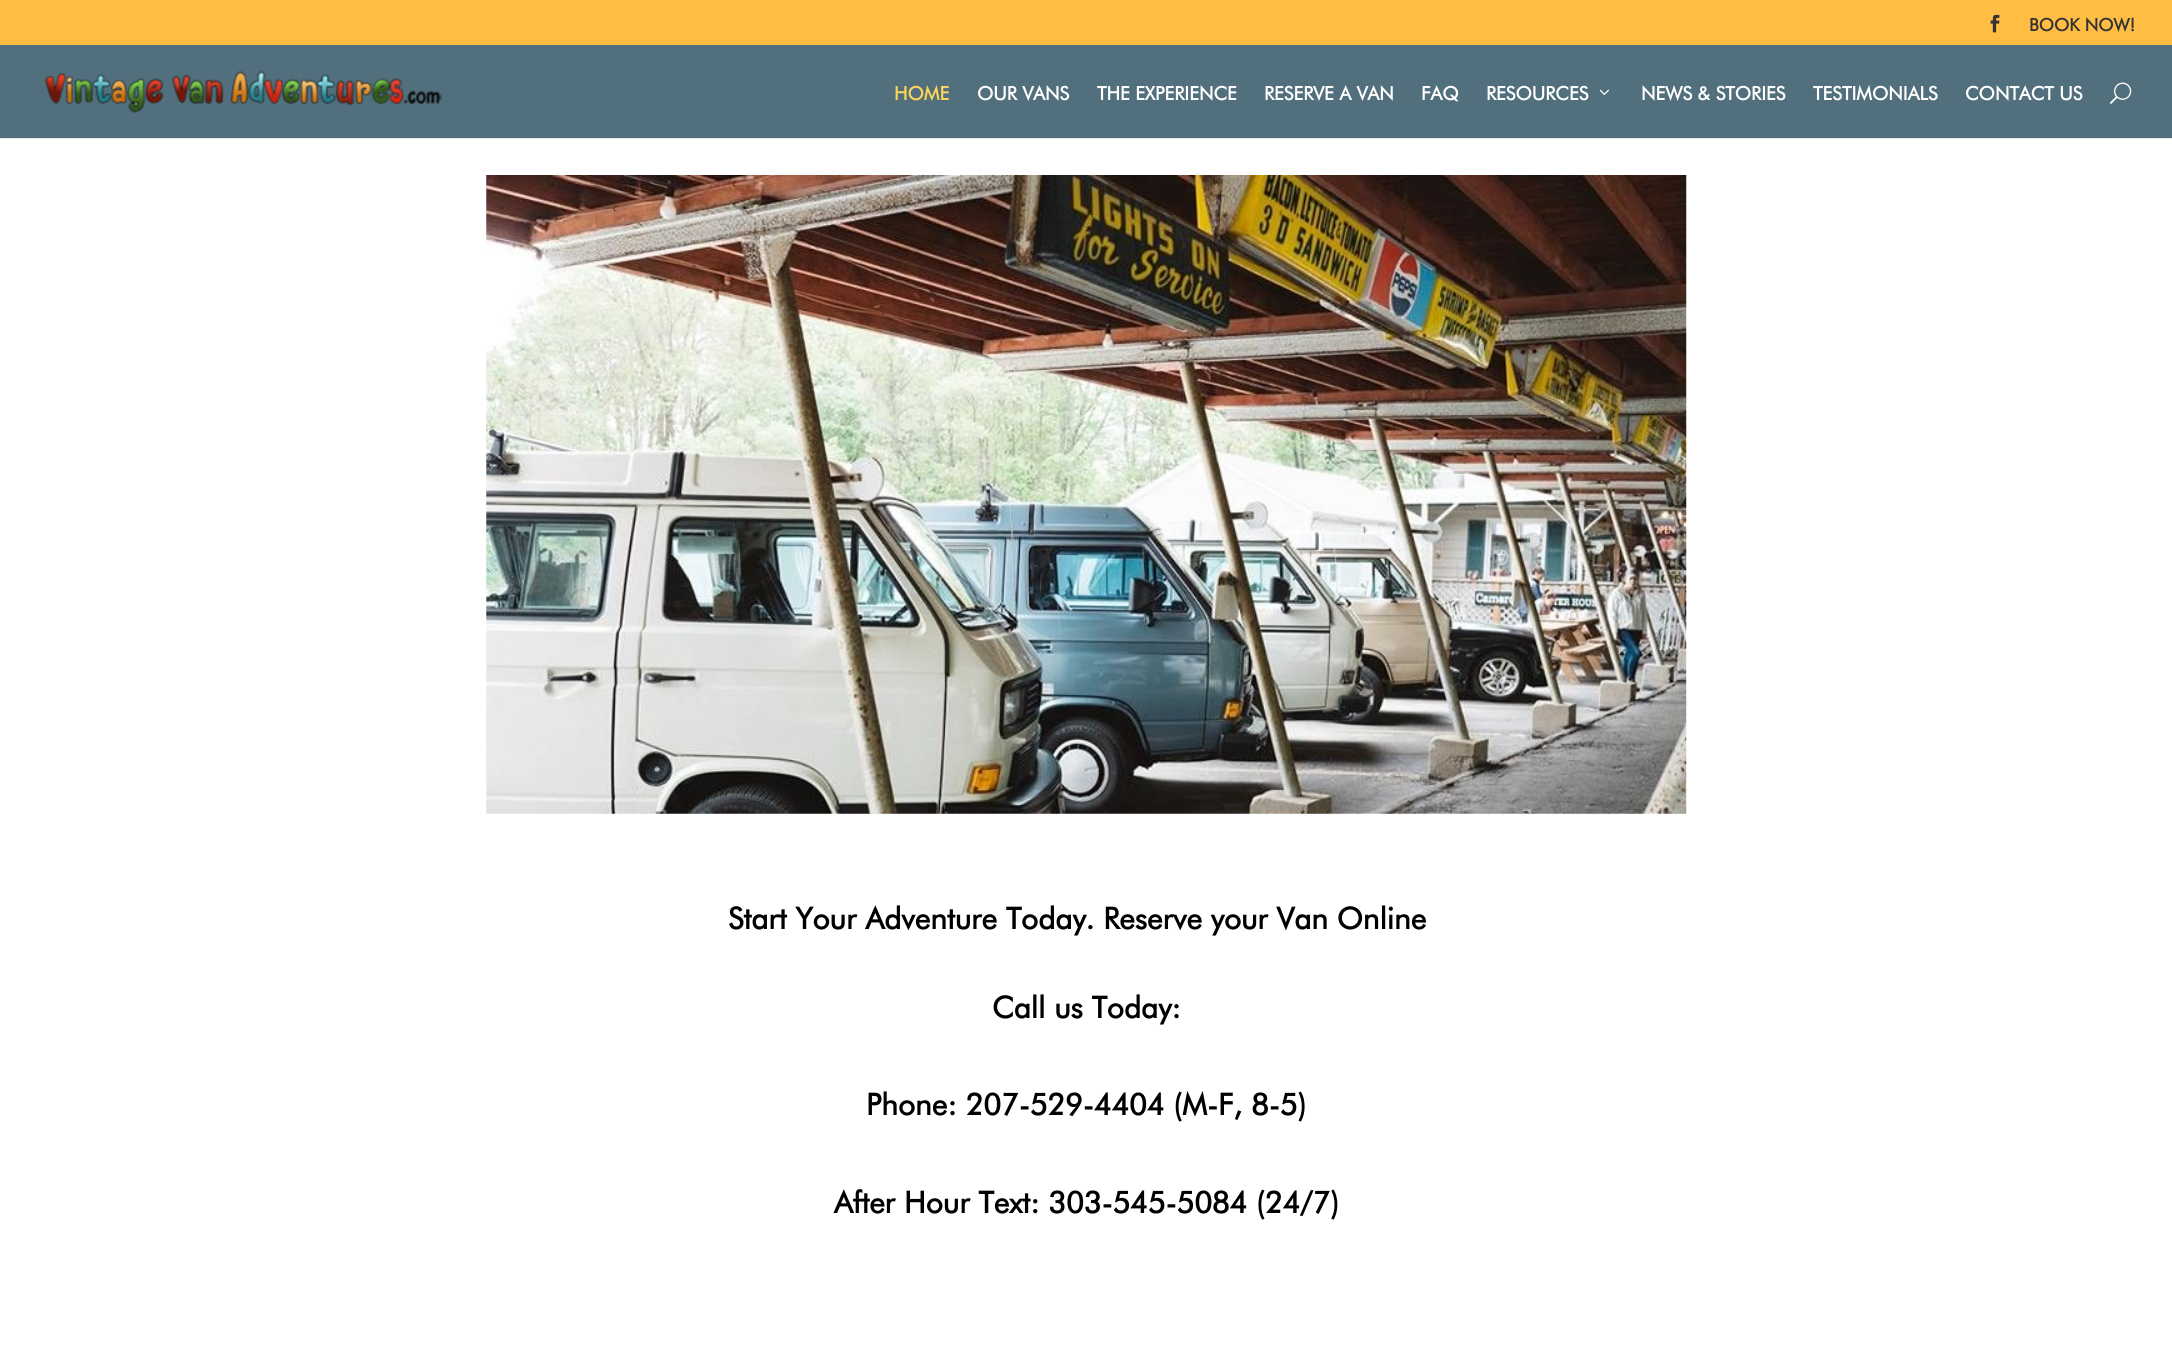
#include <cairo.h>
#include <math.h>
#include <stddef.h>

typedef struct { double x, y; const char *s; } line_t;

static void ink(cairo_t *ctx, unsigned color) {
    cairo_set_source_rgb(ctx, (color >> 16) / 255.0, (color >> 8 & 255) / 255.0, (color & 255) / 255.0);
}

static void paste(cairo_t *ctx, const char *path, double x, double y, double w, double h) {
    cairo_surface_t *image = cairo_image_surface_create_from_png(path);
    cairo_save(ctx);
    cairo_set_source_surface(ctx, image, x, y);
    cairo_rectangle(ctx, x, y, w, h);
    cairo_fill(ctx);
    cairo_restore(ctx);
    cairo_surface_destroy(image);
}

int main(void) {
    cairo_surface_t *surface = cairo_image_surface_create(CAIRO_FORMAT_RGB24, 2172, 1353);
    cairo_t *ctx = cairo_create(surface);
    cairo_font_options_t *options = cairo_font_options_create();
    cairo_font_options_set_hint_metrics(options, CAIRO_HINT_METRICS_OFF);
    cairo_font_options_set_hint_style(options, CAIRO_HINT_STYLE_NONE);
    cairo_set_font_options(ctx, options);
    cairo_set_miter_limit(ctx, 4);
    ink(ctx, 0xFFFFFF);
    cairo_paint(ctx);
    ink(ctx, 0xFFBD43);
    cairo_rectangle(ctx, 0, 0, 2172, 45);
    cairo_fill(ctx);
    paste(ctx, "media/1.png", 1990, 14, 10, 19);
    cairo_select_font_face(ctx, "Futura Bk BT", CAIRO_FONT_SLANT_NORMAL, CAIRO_FONT_WEIGHT_BOLD);
    cairo_set_font_size(ctx, 17.5);
    ink(ctx, 0x333333);
    cairo_move_to(ctx, 2029, 31);
    cairo_show_text(ctx, "BOOK NOW!");
    ink(ctx, 0xE6E6E6);
    cairo_new_path(ctx);
    cairo_move_to(ctx, 0, 138);
    cairo_line_to(ctx, 0, 139);
    cairo_line_to(ctx, 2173, 139);
    cairo_line_to(ctx, 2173, 46);
    cairo_line_to(ctx, 2172, 46);
    cairo_line_to(ctx, 2172, 138);
    cairo_close_path(ctx);
    cairo_fill(ctx);
    ink(ctx, 0x516F7C);
    cairo_rectangle(ctx, 0, 45, 2172, 93);
    cairo_fill(ctx);
    paste(ctx, "media/2.png", 44, 70, 398, 43);
    cairo_set_font_size(ctx, 18.75);
    ink(ctx, 0xFFD559);
    cairo_move_to(ctx, 894, 100);
    cairo_show_text(ctx, "HOME");
    ink(ctx, 0xFFFFFF);
    {
        static const line_t items[] = {
            {977, 100, "OUR VANS"},
            {1097, 100, "THE EXPERIENCE"},
            {1264, 100, "RESERVE A VAN"},
            {1421, 100, "FAQ"},
            {1486, 100, "RESOURCES"},
        };
        for (size_t i = 0; i < sizeof items / sizeof *items; i++) {
            cairo_move_to(ctx, items[i].x, items[i].y);
            cairo_show_text(ctx, items[i].s);
        }
    }
    paste(ctx, "media/3.png", 1599, 89, 10, 6);
    {
        static const line_t items[] = {
            {1641, 100, "NEWS & STORIES"},
            {1813, 100, "TESTIMONIALS"},
            {1965, 100, "CONTACT US"},
        };
        for (size_t i = 0; i < sizeof items / sizeof *items; i++) {
            cairo_move_to(ctx, items[i].x, items[i].y);
            cairo_show_text(ctx, items[i].s);
        }
    }
    paste(ctx, "media/4.png", 2110, 82, 22, 22);
    paste(ctx, "media/5.png", 486, 175, 1201, 639);
    cairo_set_font_size(ctx, 30);
    ink(ctx, 0x000000);
    {
        static const line_t items[] = {
            {728, 929, "Start Your Adventure Today. Reserve your Van Online"},
            {992, 1018, "Call us Today:"},
            {866, 1115, "Phone: 207-529-4404 (M-F, 8-5)"},
            {834, 1213, "After Hour Text: 303-545-5084 (24/7)"},
        };
        for (size_t i = 0; i < sizeof items / sizeof *items; i++) {
            cairo_move_to(ctx, items[i].x, items[i].y);
            cairo_show_text(ctx, items[i].s);
        }
    }
    cairo_surface_write_to_png(surface, "image.png");
    cairo_font_options_destroy(options);
    cairo_destroy(ctx);
    cairo_surface_destroy(surface);
    return 0;
}
